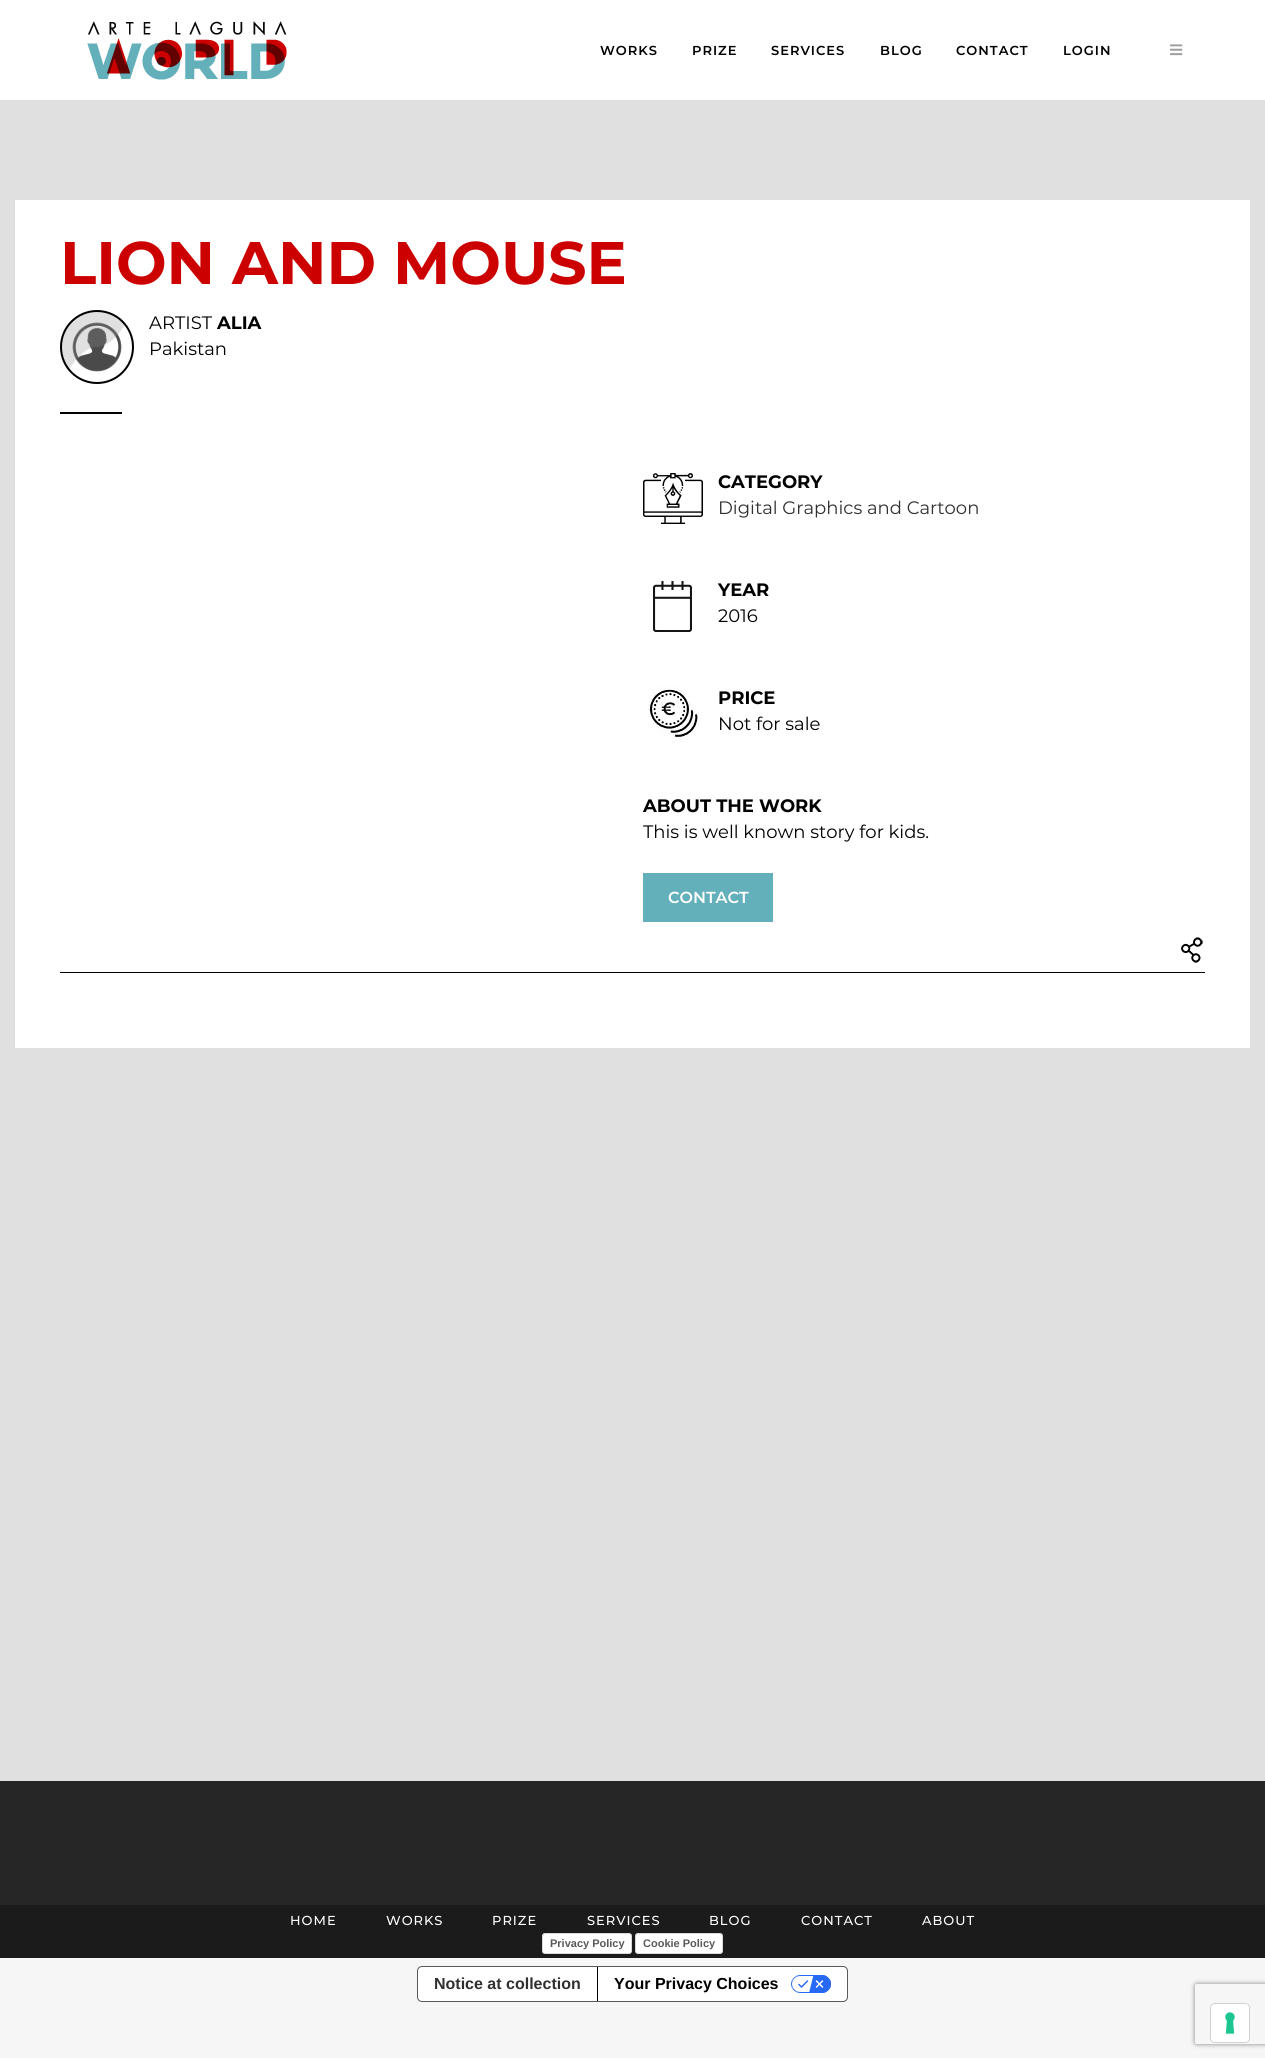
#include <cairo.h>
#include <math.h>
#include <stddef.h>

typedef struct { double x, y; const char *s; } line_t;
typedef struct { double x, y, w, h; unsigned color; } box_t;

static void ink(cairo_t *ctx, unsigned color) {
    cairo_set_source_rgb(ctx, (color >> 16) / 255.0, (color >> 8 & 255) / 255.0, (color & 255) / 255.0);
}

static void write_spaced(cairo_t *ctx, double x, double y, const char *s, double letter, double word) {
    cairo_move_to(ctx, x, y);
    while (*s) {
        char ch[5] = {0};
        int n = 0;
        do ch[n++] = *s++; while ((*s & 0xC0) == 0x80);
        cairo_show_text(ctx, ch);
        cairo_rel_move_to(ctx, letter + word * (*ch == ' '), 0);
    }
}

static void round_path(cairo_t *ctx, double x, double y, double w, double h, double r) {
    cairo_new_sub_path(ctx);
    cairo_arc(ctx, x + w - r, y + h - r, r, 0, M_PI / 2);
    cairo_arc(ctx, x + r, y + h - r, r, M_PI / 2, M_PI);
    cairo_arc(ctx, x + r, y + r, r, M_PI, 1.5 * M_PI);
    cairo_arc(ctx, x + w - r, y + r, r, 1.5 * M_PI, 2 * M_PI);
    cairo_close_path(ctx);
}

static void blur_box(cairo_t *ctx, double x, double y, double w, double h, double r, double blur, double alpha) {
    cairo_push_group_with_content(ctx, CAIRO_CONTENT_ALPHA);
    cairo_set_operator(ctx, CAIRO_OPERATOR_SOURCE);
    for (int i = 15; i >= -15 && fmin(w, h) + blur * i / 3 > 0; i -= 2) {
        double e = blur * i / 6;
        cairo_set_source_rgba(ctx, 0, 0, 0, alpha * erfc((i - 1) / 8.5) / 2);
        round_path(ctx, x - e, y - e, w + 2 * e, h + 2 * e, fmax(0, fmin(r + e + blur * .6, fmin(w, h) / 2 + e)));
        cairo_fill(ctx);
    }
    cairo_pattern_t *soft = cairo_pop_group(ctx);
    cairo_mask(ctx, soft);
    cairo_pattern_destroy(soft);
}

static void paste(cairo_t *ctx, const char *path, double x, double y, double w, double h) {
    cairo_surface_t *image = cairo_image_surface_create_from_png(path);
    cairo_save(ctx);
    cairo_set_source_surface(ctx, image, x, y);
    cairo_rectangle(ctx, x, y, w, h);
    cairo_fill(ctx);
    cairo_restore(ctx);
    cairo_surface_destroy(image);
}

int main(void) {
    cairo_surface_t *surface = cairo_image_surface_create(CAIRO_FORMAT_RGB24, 1265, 2058);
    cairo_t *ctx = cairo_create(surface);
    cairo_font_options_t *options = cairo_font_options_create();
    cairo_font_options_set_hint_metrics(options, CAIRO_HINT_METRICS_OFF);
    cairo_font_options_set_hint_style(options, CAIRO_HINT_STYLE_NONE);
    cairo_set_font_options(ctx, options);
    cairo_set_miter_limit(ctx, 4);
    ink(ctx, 0xF6F6F6);
    cairo_paint(ctx);
    ink(ctx, 0xFFFFFF);
    cairo_rectangle(ctx, 0, 0, 1265, 100);
    cairo_fill(ctx);
    paste(ctx, "media/1.png", 87, 21, 200, 59);
    cairo_select_font_face(ctx, "Montserrat SemiBold", CAIRO_FONT_SLANT_NORMAL, CAIRO_FONT_WEIGHT_NORMAL);
    cairo_set_font_size(ctx, 13);
    ink(ctx, 0x000000);
    {
        static const line_t items[] = {
            {600, 55, "WORKS"},
            {692, 55, "PRIZE"},
            {771, 55, "SERVICES"},
            {880, 55, "BLOG"},
            {956, 55, "CONTACT"},
            {1063, 55, "LOGIN"},
        };
        for (size_t i = 0; i < sizeof items / sizeof *items; i++) {
            write_spaced(ctx, items[i].x, items[i].y, items[i].s, 1, 0);
        }
    }
    paste(ctx, "media/2.png", 1170, 44, 13, 12);
    ink(ctx, 0xE0E0E0);
    cairo_rectangle(ctx, 0, 100, 1265, 1681);
    cairo_fill(ctx);
    ink(ctx, 0xFFFFFF);
    cairo_rectangle(ctx, 15, 200, 1235, 848);
    cairo_fill(ctx);
    cairo_select_font_face(ctx, "Montserrat", CAIRO_FONT_SLANT_NORMAL, CAIRO_FONT_WEIGHT_BOLD);
    cairo_set_font_size(ctx, 60);
    ink(ctx, 0xCD0000);
    cairo_move_to(ctx, 60, 284);
    cairo_show_text(ctx, "LION AND MOUSE");
    paste(ctx, "media/3.png", 62, 312, 72, 72);
    cairo_arc(ctx, 97, 347, 36, 0, 2 * M_PI);
    ink(ctx, 0x000000);
    cairo_stroke(ctx);
    cairo_select_font_face(ctx, "Montserrat", CAIRO_FONT_SLANT_NORMAL, CAIRO_FONT_WEIGHT_NORMAL);
    cairo_set_font_size(ctx, 18);
    cairo_move_to(ctx, 149, 329);
    cairo_show_text(ctx, "ARTIST");
    cairo_select_font_face(ctx, "Montserrat", CAIRO_FONT_SLANT_NORMAL, CAIRO_FONT_WEIGHT_BOLD);
    cairo_move_to(ctx, 217, 329);
    cairo_show_text(ctx, "ALIA");
    cairo_select_font_face(ctx, "Montserrat", CAIRO_FONT_SLANT_NORMAL, CAIRO_FONT_WEIGHT_NORMAL);
    cairo_move_to(ctx, 149, 355);
    cairo_show_text(ctx, "Pakistan");
    cairo_rectangle(ctx, 60, 412, 62, 2);
    cairo_fill(ctx);
    paste(ctx, "media/4.png", 643, 473, 60, 51);
    cairo_select_font_face(ctx, "Montserrat", CAIRO_FONT_SLANT_NORMAL, CAIRO_FONT_WEIGHT_BOLD);
    cairo_move_to(ctx, 718, 488);
    cairo_show_text(ctx, "CATEGORY");
    cairo_select_font_face(ctx, "Montserrat", CAIRO_FONT_SLANT_NORMAL, CAIRO_FONT_WEIGHT_NORMAL);
    ink(ctx, 0x303030);
    cairo_move_to(ctx, 718, 514);
    cairo_show_text(ctx, "Digital Graphics and Cartoon");
    paste(ctx, "media/5.png", 653, 581, 39, 51);
    cairo_select_font_face(ctx, "Montserrat", CAIRO_FONT_SLANT_NORMAL, CAIRO_FONT_WEIGHT_BOLD);
    ink(ctx, 0x000000);
    cairo_move_to(ctx, 718, 596);
    cairo_show_text(ctx, "YEAR");
    cairo_select_font_face(ctx, "Montserrat", CAIRO_FONT_SLANT_NORMAL, CAIRO_FONT_WEIGHT_NORMAL);
    cairo_move_to(ctx, 718, 622);
    cairo_show_text(ctx, "2016");
    paste(ctx, "media/6.png", 648, 686, 50, 55);
    cairo_select_font_face(ctx, "Montserrat", CAIRO_FONT_SLANT_NORMAL, CAIRO_FONT_WEIGHT_BOLD);
    cairo_move_to(ctx, 718, 704);
    cairo_show_text(ctx, "PRICE");
    cairo_select_font_face(ctx, "Montserrat", CAIRO_FONT_SLANT_NORMAL, CAIRO_FONT_WEIGHT_NORMAL);
    cairo_move_to(ctx, 718, 730);
    cairo_show_text(ctx, "Not for sale");
    cairo_select_font_face(ctx, "Montserrat", CAIRO_FONT_SLANT_NORMAL, CAIRO_FONT_WEIGHT_BOLD);
    cairo_move_to(ctx, 643, 812);
    cairo_show_text(ctx, "ABOUT THE WORK");
    cairo_select_font_face(ctx, "Montserrat", CAIRO_FONT_SLANT_NORMAL, CAIRO_FONT_WEIGHT_NORMAL);
    cairo_move_to(ctx, 643, 838);
    cairo_show_text(ctx, "This is well known story for kids.");
    ink(ctx, 0x63B0BB);
    cairo_rectangle(ctx, 643, 873, 130, 49);
    cairo_fill(ctx);
    cairo_select_font_face(ctx, "Montserrat SemiBold", CAIRO_FONT_SLANT_NORMAL, CAIRO_FONT_WEIGHT_NORMAL);
    cairo_set_font_size(ctx, 16);
    ink(ctx, 0xFFFFFF);
    cairo_move_to(ctx, 668, 903);
    cairo_show_text(ctx, "CONTACT");
    paste(ctx, "media/7.png", 1181, 937, 22, 26);
    {
        static const box_t items[] = {
            {60, 972, 1145, 1, 0x000000},
            {0, 1781, 1265, 124, 0x262626},
            {0, 1905, 1265, 53, 0x1B1B1B},
        };
        for (size_t i = 0; i < sizeof items / sizeof *items; i++) {
            ink(ctx, items[i].color);
            cairo_rectangle(ctx, items[i].x, items[i].y, items[i].w, items[i].h);
            cairo_fill(ctx);
        }
    }
    cairo_select_font_face(ctx, "Montserrat Medium", CAIRO_FONT_SLANT_NORMAL, CAIRO_FONT_WEIGHT_NORMAL);
    cairo_set_font_size(ctx, 13);
    ink(ctx, 0xFFFFFF);
    {
        static const line_t items[] = {
            {290, 1925, "HOME"},
            {386, 1925, "WORKS"},
            {492, 1925, "PRIZE"},
            {587, 1925, "SERVICES"},
            {709, 1925, "BLOG"},
            {801, 1925, "CONTACT"},
            {922, 1925, "ABOUT"},
        };
        for (size_t i = 0; i < sizeof items / sizeof *items; i++) {
            write_spaced(ctx, items[i].x, items[i].y, items[i].s, 1, 0);
        }
    }
    round_path(ctx, 542, 1933, 90, 21, 3);
    cairo_fill(ctx);
    round_path(ctx, 542.5, 1933.5, 89, 20, 2.5);
    cairo_set_source_rgba(ctx, 0, 0, 0, 0.15);
    cairo_set_line_width(ctx, 1);
    cairo_stroke(ctx);
    cairo_select_font_face(ctx, "Liberation Sans", CAIRO_FONT_SLANT_NORMAL, CAIRO_FONT_WEIGHT_BOLD);
    cairo_set_font_size(ctx, 11);
    ink(ctx, 0x595959);
    cairo_move_to(ctx, 550, 1947);
    cairo_show_text(ctx, "Privacy Policy");
    ink(ctx, 0xFFFFFF);
    round_path(ctx, 635, 1933, 88, 21, 3);
    cairo_fill(ctx);
    round_path(ctx, 635.5, 1933.5, 87, 20, 2.5);
    cairo_set_source_rgba(ctx, 0, 0, 0, 0.15);
    cairo_stroke(ctx);
    ink(ctx, 0x595959);
    cairo_move_to(ctx, 643, 1947);
    cairo_show_text(ctx, "Cookie Policy");
    ink(ctx, 0xFFFFFF);
    round_path(ctx, 417.5, 1966.5, 430, 35, 4.5);
    cairo_fill_preserve(ctx);
    ink(ctx, 0x595959);
    cairo_stroke(ctx);
    cairo_set_font_size(ctx, 16);
    ink(ctx, 0x303030);
    cairo_move_to(ctx, 434, 1989);
    cairo_show_text(ctx, "Notice at collection");
    ink(ctx, 0x000000);
    cairo_rectangle(ctx, 597, 1967, 1, 34);
    cairo_fill(ctx);
    cairo_move_to(ctx, 614, 1989);
    cairo_show_text(ctx, "Your Privacy Choices");
    paste(ctx, "media/8.png", 791, 1975, 40, 18);
    cairo_save(ctx);
    cairo_set_fill_rule(ctx, CAIRO_FILL_RULE_EVEN_ODD);
    cairo_new_path(ctx);
    cairo_move_to(ctx, 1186, 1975);
    cairo_line_to(ctx, 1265, 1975);
    cairo_line_to(ctx, 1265, 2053);
    cairo_line_to(ctx, 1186, 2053);
    cairo_close_path(ctx);
    cairo_move_to(ctx, 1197, 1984);
    cairo_line_to(ctx, 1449, 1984);
    cairo_curve_to(ctx, 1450, 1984, 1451, 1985, 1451, 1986);
    cairo_line_to(ctx, 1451, 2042);
    cairo_curve_to(ctx, 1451, 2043, 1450, 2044, 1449, 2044);
    cairo_line_to(ctx, 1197, 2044);
    cairo_curve_to(ctx, 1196, 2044, 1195, 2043, 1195, 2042);
    cairo_line_to(ctx, 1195, 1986);
    cairo_curve_to(ctx, 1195, 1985, 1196, 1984, 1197, 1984);
    cairo_close_path(ctx);
    cairo_clip(ctx);
    ink(ctx, 0x808080);
    blur_box(ctx, 1195, 1984, 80, 60, 2, 2.5, 1);
    cairo_restore(ctx);
    round_path(ctx, 1210.5, 2003.5, 39, 39, 4.5);
    ink(ctx, 0xD1D1D1);
    cairo_stroke(ctx);
    ink(ctx, 0xFFFFFF);
    round_path(ctx, 1211, 2004, 38, 38, 4);
    cairo_fill(ctx);
    paste(ctx, "media/9.png", 1225, 2012, 10, 22);
    cairo_surface_write_to_png(surface, "image.png");
    cairo_font_options_destroy(options);
    cairo_destroy(ctx);
    cairo_surface_destroy(surface);
    return 0;
}
